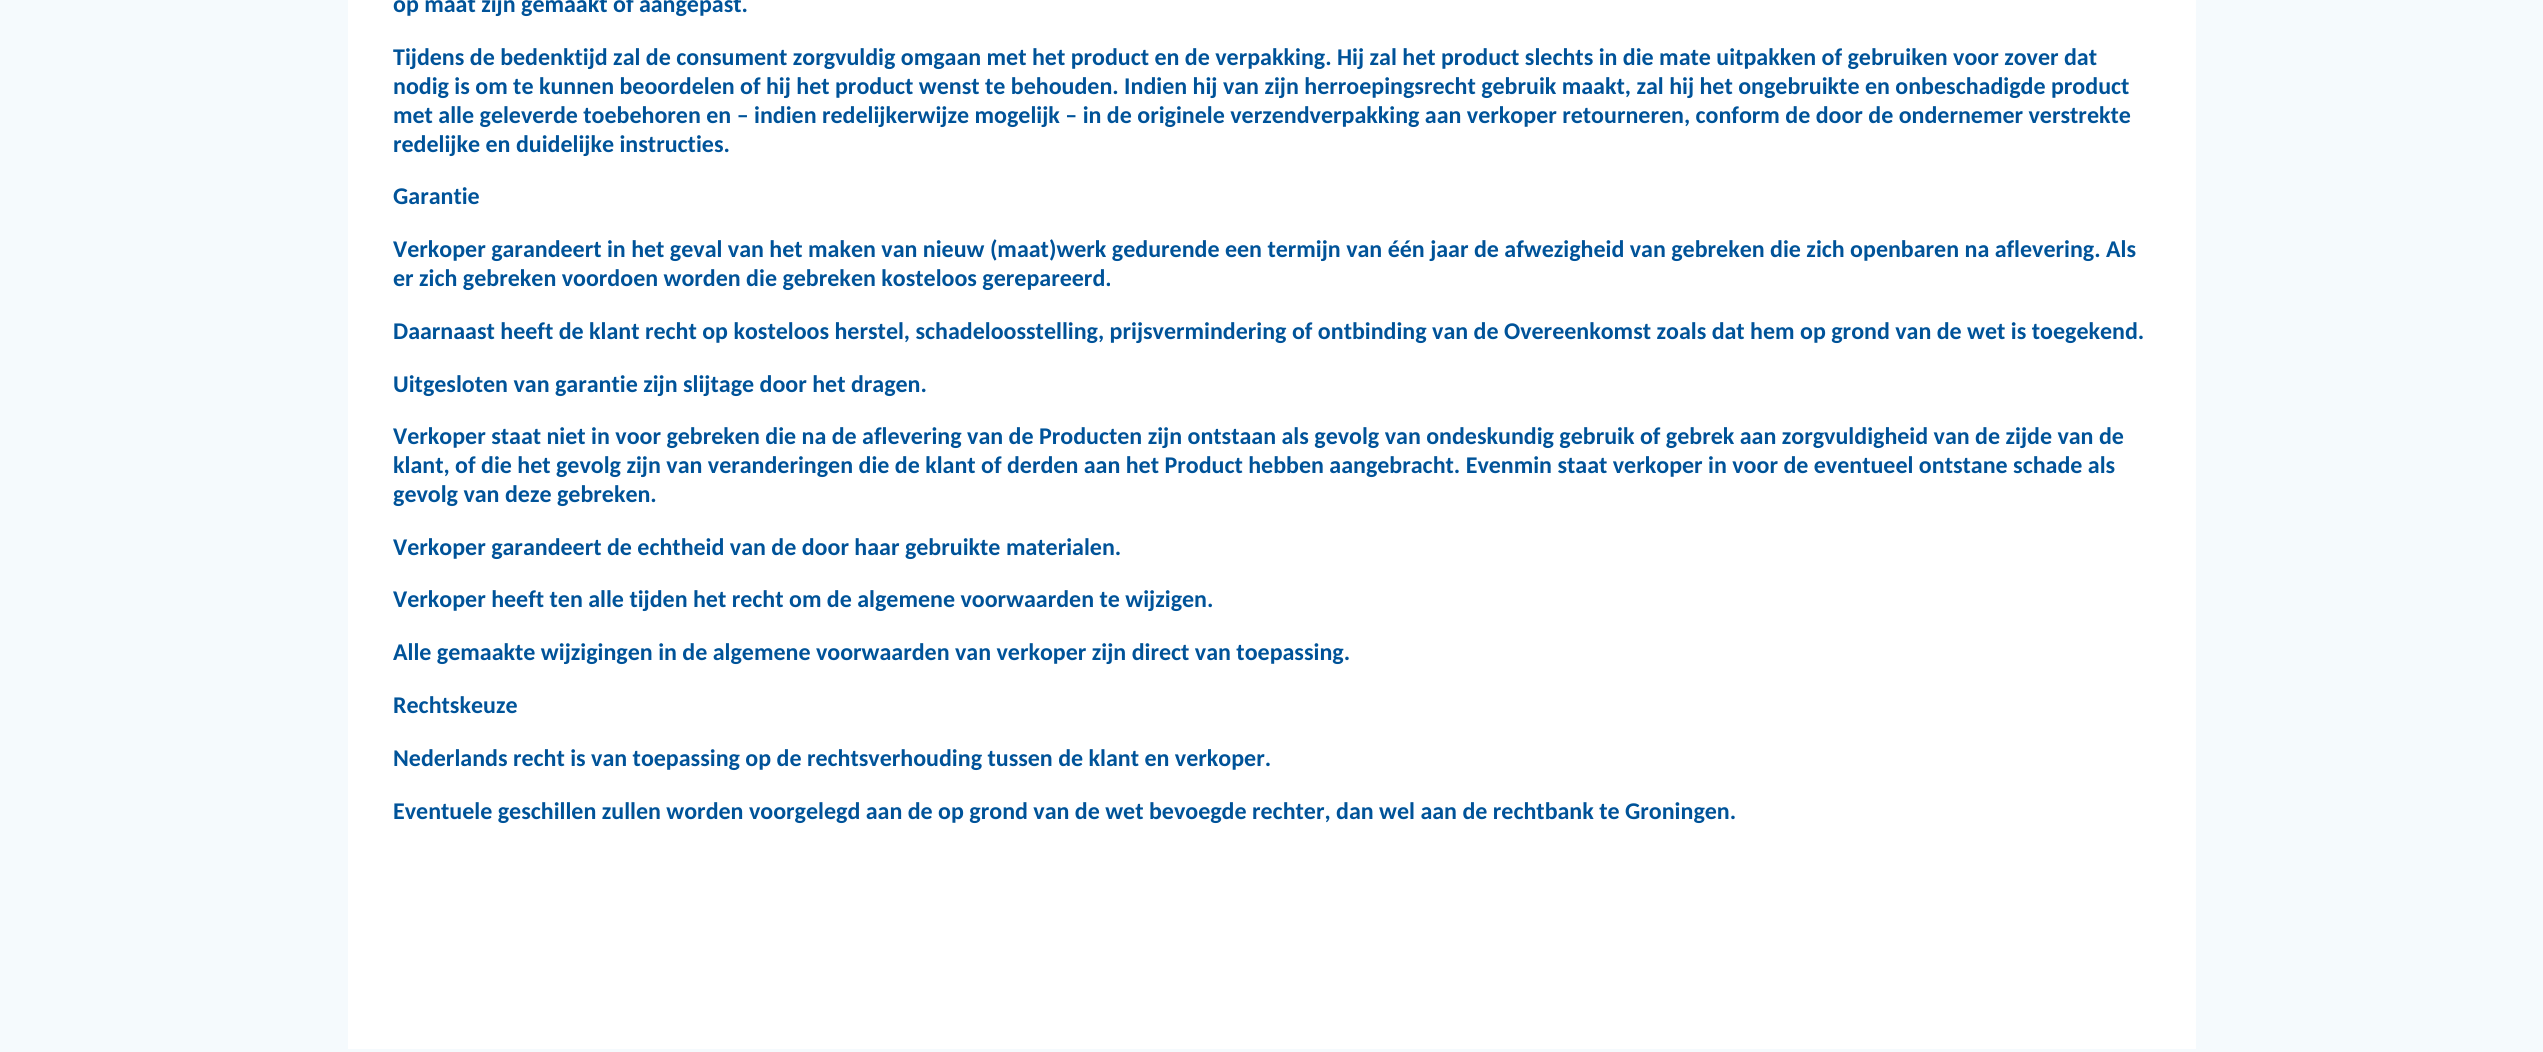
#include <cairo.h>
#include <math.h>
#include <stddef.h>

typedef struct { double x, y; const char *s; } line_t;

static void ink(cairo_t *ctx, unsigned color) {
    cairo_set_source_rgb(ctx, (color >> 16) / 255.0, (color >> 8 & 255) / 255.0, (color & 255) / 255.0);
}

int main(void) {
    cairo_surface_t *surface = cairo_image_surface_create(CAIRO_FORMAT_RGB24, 2543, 1052);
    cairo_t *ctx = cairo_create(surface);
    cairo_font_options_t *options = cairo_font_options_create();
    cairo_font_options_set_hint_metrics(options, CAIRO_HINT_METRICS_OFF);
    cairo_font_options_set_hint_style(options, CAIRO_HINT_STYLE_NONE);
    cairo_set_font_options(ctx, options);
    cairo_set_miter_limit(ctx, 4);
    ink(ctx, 0xF5FAFD);
    cairo_paint(ctx);
    ink(ctx, 0xFFFFFF);
    cairo_rectangle(ctx, 348, 0, 1848, 1049);
    cairo_fill(ctx);
    cairo_select_font_face(ctx, "Carlito", CAIRO_FONT_SLANT_NORMAL, CAIRO_FONT_WEIGHT_BOLD);
    cairo_set_font_size(ctx, 24);
    ink(ctx, 0x005399);
    {
        static const line_t items[] = {
            {393, 12, "op maat zijn gemaakt of aangepast."},
            {393, 65, "Tijdens de bedenktijd zal de consument zorgvuldig omgaan met het product en de verpakking. Hij zal het product slechts in die mate uitpakken of gebruiken voor zover dat"},
            {393, 94, "nodig is om te kunnen beoordelen of hij het product wenst te behouden. Indien hij van zijn herroepingsrecht gebruik maakt, zal hij het ongebruikte en onbeschadigde product"},
            {393, 123, "met alle geleverde toebehoren en – indien redelijkerwijze mogelijk – in de originele verzendverpakking aan verkoper retourneren, conform de door de ondernemer verstrekte"},
            {393, 152, "redelijke en duidelijke instructies."},
            {393, 204, "Garantie"},
            {393, 257, "Verkoper garandeert in het geval van het maken van nieuw (maat)werk gedurende een termijn van één jaar de afwezigheid van gebreken die zich openbaren na aflevering. Als"},
            {393, 286, "er zich gebreken voordoen worden die gebreken kosteloos gerepareerd."},
            {393, 339, "Daarnaast heeft de klant recht op kosteloos herstel, schadeloosstelling, prijsvermindering of ontbinding van de Overeenkomst zoals dat hem op grond van de wet is toegekend."},
            {393, 392, "Uitgesloten van garantie zijn slijtage door het dragen."},
            {393, 444, "Verkoper staat niet in voor gebreken die na de aflevering van de Producten zijn ontstaan als gevolg van ondeskundig gebruik of gebrek aan zorgvuldigheid van de zijde van de"},
            {393, 473, "klant, of die het gevolg zijn van veranderingen die de klant of derden aan het Product hebben aangebracht. Evenmin staat verkoper in voor de eventueel ontstane schade als"},
            {393, 502, "gevolg van deze gebreken."},
            {393, 555, "Verkoper garandeert de echtheid van de door haar gebruikte materialen."},
            {393, 607, "Verkoper heeft ten alle tijden het recht om de algemene voorwaarden te wijzigen."},
            {393, 660, "Alle gemaakte wijzigingen in de algemene voorwaarden van verkoper zijn direct van toepassing."},
            {393, 713, "Rechtskeuze"},
            {393, 766, "Nederlands recht is van toepassing op de rechtsverhouding tussen de klant en verkoper."},
            {393, 819, "Eventuele geschillen zullen worden voorgelegd aan de op grond van de wet bevoegde rechter, dan wel aan de rechtbank te Groningen."},
        };
        for (size_t i = 0; i < sizeof items / sizeof *items; i++) {
            cairo_move_to(ctx, items[i].x, items[i].y);
            cairo_show_text(ctx, items[i].s);
        }
    }
    cairo_surface_write_to_png(surface, "image.png");
    cairo_font_options_destroy(options);
    cairo_destroy(ctx);
    cairo_surface_destroy(surface);
    return 0;
}
